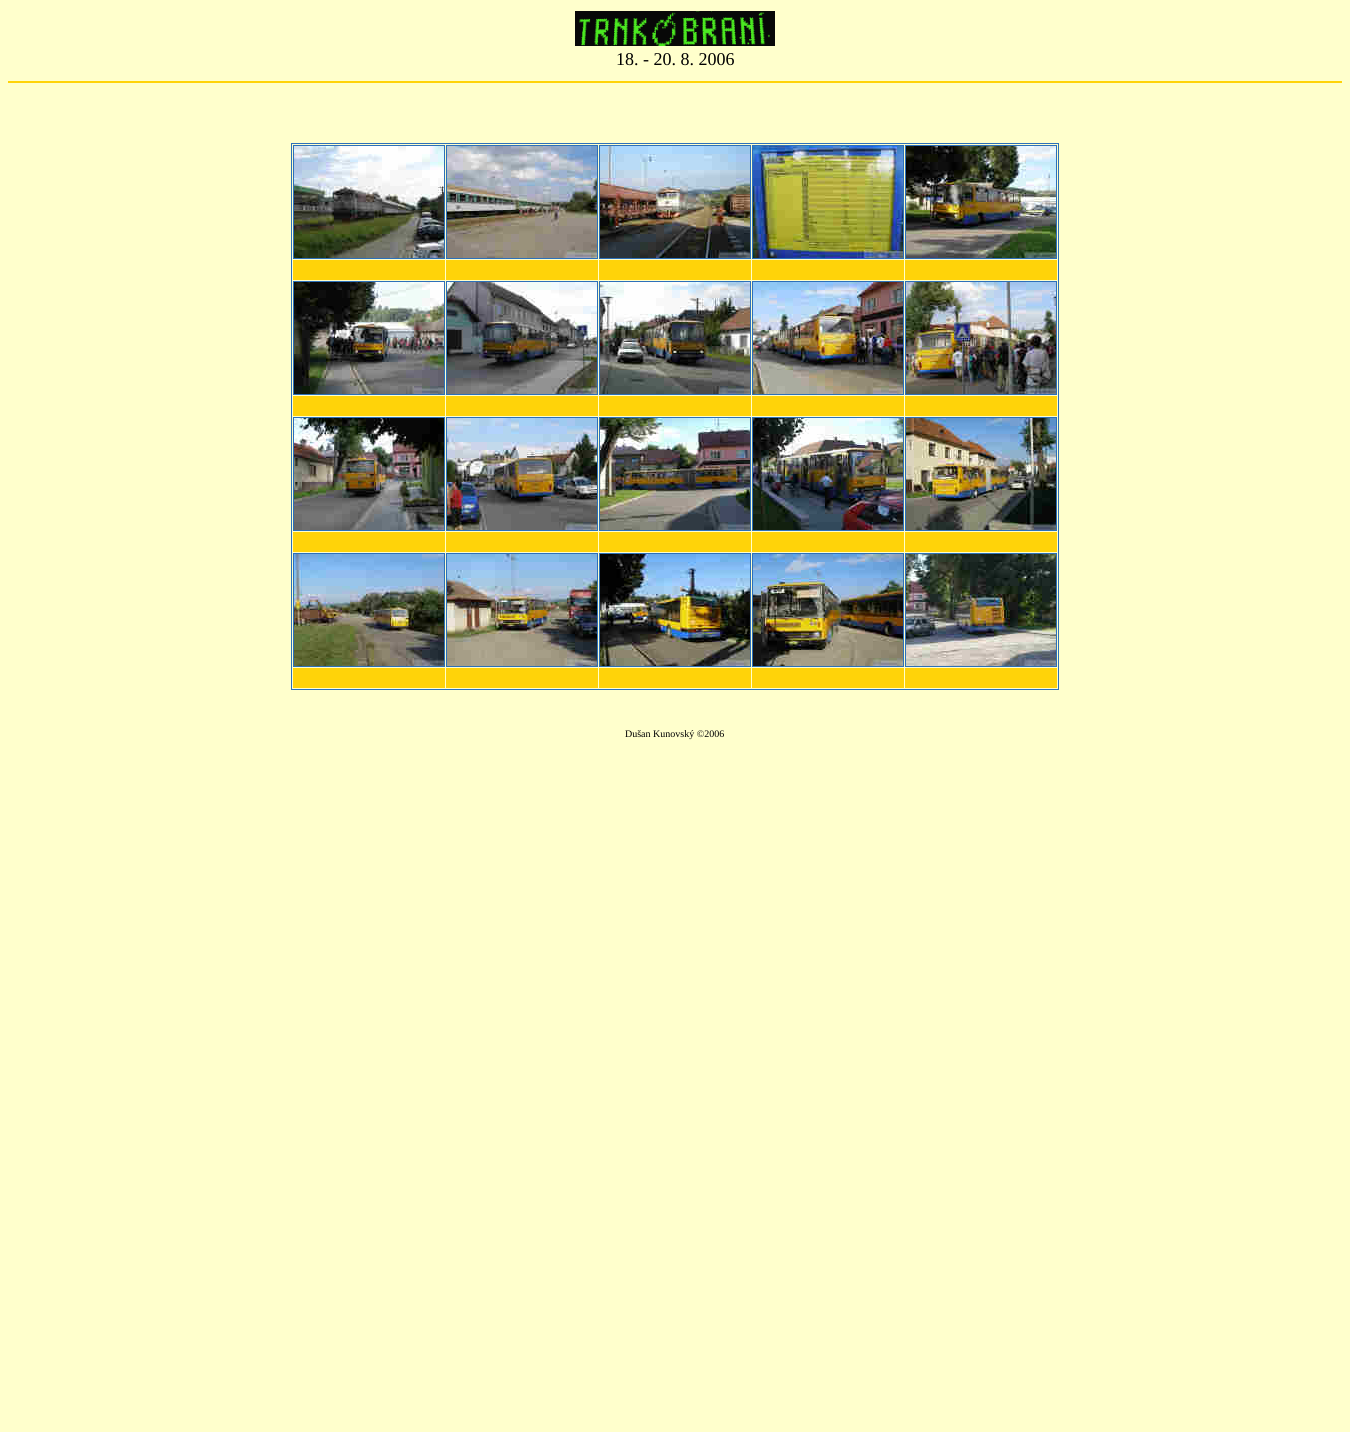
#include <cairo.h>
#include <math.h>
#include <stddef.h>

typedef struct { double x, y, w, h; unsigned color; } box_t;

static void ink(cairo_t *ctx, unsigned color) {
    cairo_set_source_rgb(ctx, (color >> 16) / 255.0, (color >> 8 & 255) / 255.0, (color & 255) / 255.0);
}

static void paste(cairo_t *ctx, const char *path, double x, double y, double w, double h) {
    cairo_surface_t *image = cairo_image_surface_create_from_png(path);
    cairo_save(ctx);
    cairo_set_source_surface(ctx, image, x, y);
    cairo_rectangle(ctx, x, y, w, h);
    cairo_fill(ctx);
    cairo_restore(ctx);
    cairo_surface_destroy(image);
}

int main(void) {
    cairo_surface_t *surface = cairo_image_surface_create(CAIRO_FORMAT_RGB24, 1350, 1432);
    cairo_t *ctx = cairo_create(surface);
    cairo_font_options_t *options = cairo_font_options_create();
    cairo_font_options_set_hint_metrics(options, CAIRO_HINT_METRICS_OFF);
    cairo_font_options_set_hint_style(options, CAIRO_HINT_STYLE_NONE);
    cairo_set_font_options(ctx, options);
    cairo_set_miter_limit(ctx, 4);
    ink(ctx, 0xFFFFCC);
    cairo_paint(ctx);
    paste(ctx, "media/1.png", 575, 11, 200, 35);
    cairo_select_font_face(ctx, "Liberation Serif", CAIRO_FONT_SLANT_NORMAL, CAIRO_FONT_WEIGHT_NORMAL);
    cairo_set_font_size(ctx, 18);
    ink(ctx, 0x000000);
    cairo_move_to(ctx, 616, 65);
    cairo_show_text(ctx, "18. - 20. 8. 2006");
    ink(ctx, 0xFFD309);
    cairo_rectangle(ctx, 8, 81, 1334, 2);
    cairo_fill(ctx);
    cairo_rectangle(ctx, 291.5, 143.5, 767, 546);
    ink(ctx, 0x2C70BA);
    cairo_set_line_width(ctx, 1);
    cairo_stroke(ctx);
    cairo_rectangle(ctx, 293, 145, 152, 114);
    cairo_fill(ctx);
    paste(ctx, "media/2.png", 294, 146, 150, 112);
    cairo_rectangle(ctx, 446, 145, 152, 114);
    cairo_fill(ctx);
    paste(ctx, "media/3.png", 447, 146, 150, 112);
    cairo_rectangle(ctx, 599, 145, 152, 114);
    cairo_fill(ctx);
    paste(ctx, "media/4.png", 600, 146, 150, 112);
    cairo_rectangle(ctx, 752, 145, 152, 114);
    cairo_fill(ctx);
    paste(ctx, "media/5.png", 753, 146, 150, 112);
    cairo_rectangle(ctx, 905, 145, 152, 114);
    cairo_fill(ctx);
    paste(ctx, "media/6.png", 906, 146, 150, 112);
    {
        static const box_t items[] = {
            {293, 260, 152, 20, 0xFFD309},
            {446, 260, 152, 20, 0xFFD309},
            {599, 260, 152, 20, 0xFFD309},
            {752, 260, 152, 20, 0xFFD309},
            {905, 260, 152, 20, 0xFFD309},
            {293, 281, 152, 114, 0x2C70BA},
        };
        for (size_t i = 0; i < sizeof items / sizeof *items; i++) {
            ink(ctx, items[i].color);
            cairo_rectangle(ctx, items[i].x, items[i].y, items[i].w, items[i].h);
            cairo_fill(ctx);
        }
    }
    paste(ctx, "media/7.png", 294, 282, 150, 112);
    cairo_rectangle(ctx, 446, 281, 152, 114);
    cairo_fill(ctx);
    paste(ctx, "media/8.png", 447, 282, 150, 112);
    cairo_rectangle(ctx, 599, 281, 152, 114);
    cairo_fill(ctx);
    paste(ctx, "media/9.png", 600, 282, 150, 112);
    cairo_rectangle(ctx, 752, 281, 152, 114);
    cairo_fill(ctx);
    paste(ctx, "media/10.png", 753, 282, 150, 112);
    cairo_rectangle(ctx, 905, 281, 152, 114);
    cairo_fill(ctx);
    paste(ctx, "media/11.png", 906, 282, 150, 112);
    {
        static const box_t items[] = {
            {293, 396, 152, 20, 0xFFD309},
            {446, 396, 152, 20, 0xFFD309},
            {599, 396, 152, 20, 0xFFD309},
            {752, 396, 152, 20, 0xFFD309},
            {905, 396, 152, 20, 0xFFD309},
            {293, 417, 152, 114, 0x2C70BA},
        };
        for (size_t i = 0; i < sizeof items / sizeof *items; i++) {
            ink(ctx, items[i].color);
            cairo_rectangle(ctx, items[i].x, items[i].y, items[i].w, items[i].h);
            cairo_fill(ctx);
        }
    }
    paste(ctx, "media/12.png", 294, 418, 150, 112);
    cairo_rectangle(ctx, 446, 417, 152, 114);
    cairo_fill(ctx);
    paste(ctx, "media/13.png", 447, 418, 150, 112);
    cairo_rectangle(ctx, 599, 417, 152, 114);
    cairo_fill(ctx);
    paste(ctx, "media/14.png", 600, 418, 150, 112);
    cairo_rectangle(ctx, 752, 417, 152, 114);
    cairo_fill(ctx);
    paste(ctx, "media/15.png", 753, 418, 150, 112);
    cairo_rectangle(ctx, 905, 417, 152, 114);
    cairo_fill(ctx);
    paste(ctx, "media/16.png", 906, 418, 150, 112);
    {
        static const box_t items[] = {
            {293, 532, 152, 20, 0xFFD309},
            {446, 532, 152, 20, 0xFFD309},
            {599, 532, 152, 20, 0xFFD309},
            {752, 532, 152, 20, 0xFFD309},
            {905, 532, 152, 20, 0xFFD309},
            {293, 553, 152, 114, 0x2C70BA},
        };
        for (size_t i = 0; i < sizeof items / sizeof *items; i++) {
            ink(ctx, items[i].color);
            cairo_rectangle(ctx, items[i].x, items[i].y, items[i].w, items[i].h);
            cairo_fill(ctx);
        }
    }
    paste(ctx, "media/17.png", 294, 554, 150, 112);
    cairo_rectangle(ctx, 446, 553, 152, 114);
    cairo_fill(ctx);
    paste(ctx, "media/18.png", 447, 554, 150, 112);
    cairo_rectangle(ctx, 599, 553, 152, 114);
    cairo_fill(ctx);
    paste(ctx, "media/19.png", 600, 554, 150, 112);
    cairo_rectangle(ctx, 752, 553, 152, 114);
    cairo_fill(ctx);
    paste(ctx, "media/20.png", 753, 554, 150, 112);
    cairo_rectangle(ctx, 905, 553, 152, 114);
    cairo_fill(ctx);
    paste(ctx, "media/21.png", 906, 554, 150, 112);
    {
        static const box_t items[] = {
            {293, 668, 152, 20, 0xFFD309},
            {446, 668, 152, 20, 0xFFD309},
            {599, 668, 152, 20, 0xFFD309},
            {752, 668, 152, 20, 0xFFD309},
            {905, 668, 152, 20, 0xFFD309},
        };
        for (size_t i = 0; i < sizeof items / sizeof *items; i++) {
            ink(ctx, items[i].color);
            cairo_rectangle(ctx, items[i].x, items[i].y, items[i].w, items[i].h);
            cairo_fill(ctx);
        }
    }
    cairo_set_font_size(ctx, 10);
    ink(ctx, 0x000000);
    cairo_move_to(ctx, 625, 737);
    cairo_show_text(ctx, "Dušan Kunovský ©2006");
    cairo_surface_write_to_png(surface, "image.png");
    cairo_font_options_destroy(options);
    cairo_destroy(ctx);
    cairo_surface_destroy(surface);
    return 0;
}
